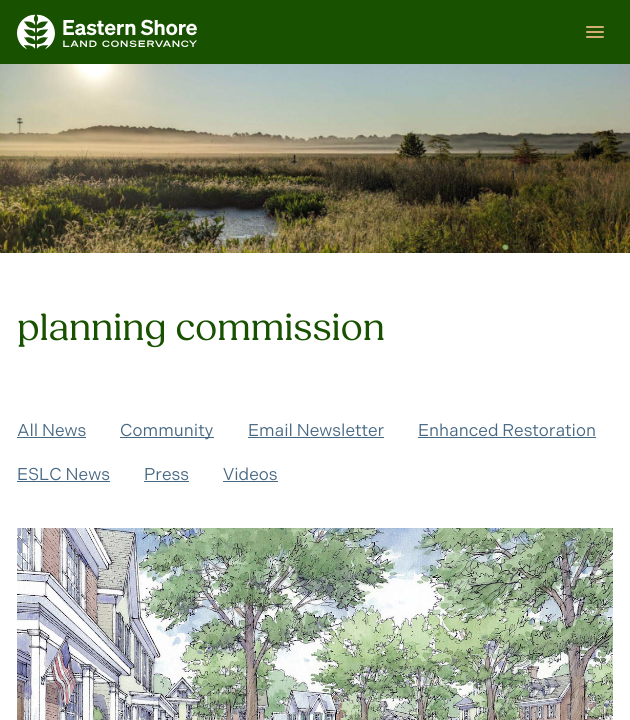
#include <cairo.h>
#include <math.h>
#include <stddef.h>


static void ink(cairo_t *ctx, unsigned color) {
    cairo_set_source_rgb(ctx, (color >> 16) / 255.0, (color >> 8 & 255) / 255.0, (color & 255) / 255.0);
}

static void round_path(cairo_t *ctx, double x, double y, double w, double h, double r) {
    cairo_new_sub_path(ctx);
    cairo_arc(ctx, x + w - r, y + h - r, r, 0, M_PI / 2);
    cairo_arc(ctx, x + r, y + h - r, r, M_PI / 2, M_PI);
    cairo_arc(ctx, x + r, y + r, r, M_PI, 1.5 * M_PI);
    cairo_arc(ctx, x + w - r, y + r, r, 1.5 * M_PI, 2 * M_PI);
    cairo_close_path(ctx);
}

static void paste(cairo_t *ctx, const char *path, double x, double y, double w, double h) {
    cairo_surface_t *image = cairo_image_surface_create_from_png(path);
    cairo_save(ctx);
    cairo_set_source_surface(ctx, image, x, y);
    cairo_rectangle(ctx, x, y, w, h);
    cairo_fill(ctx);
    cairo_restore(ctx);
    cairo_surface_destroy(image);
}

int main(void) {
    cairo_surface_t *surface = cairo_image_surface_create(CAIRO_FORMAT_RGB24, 630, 720);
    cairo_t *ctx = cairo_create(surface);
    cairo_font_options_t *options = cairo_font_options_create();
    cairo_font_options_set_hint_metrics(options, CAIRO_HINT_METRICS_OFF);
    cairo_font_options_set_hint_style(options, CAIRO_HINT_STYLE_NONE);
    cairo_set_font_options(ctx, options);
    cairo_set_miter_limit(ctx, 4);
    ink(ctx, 0xFFFFFF);
    cairo_paint(ctx);
    ink(ctx, 0x185100);
    cairo_rectangle(ctx, 0, 0, 630, 64);
    cairo_fill(ctx);
    paste(ctx, "media/1.png", 17, 14, 180, 36);
    ink(ctx, 0xD0AE73);
    round_path(ctx, 586, 26, 18, 2, 1);
    cairo_fill(ctx);
    round_path(ctx, 586, 31, 18, 2, 1);
    cairo_fill(ctx);
    round_path(ctx, 586, 36, 18, 2, 1);
    cairo_fill(ctx);
    paste(ctx, "media/2.png", 0, 64, 630, 189);
    cairo_select_font_face(ctx, "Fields", CAIRO_FONT_SLANT_NORMAL, CAIRO_FONT_WEIGHT_NORMAL);
    cairo_set_font_size(ctx, 37.75);
    ink(ctx, 0x185100);
    cairo_move_to(ctx, 17, 340);
    cairo_show_text(ctx, "planning commission");
    cairo_select_font_face(ctx, "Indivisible", CAIRO_FONT_SLANT_NORMAL, CAIRO_FONT_WEIGHT_NORMAL);
    cairo_set_font_size(ctx, 17.1);
    ink(ctx, 0x476882);
    cairo_move_to(ctx, 17, 436);
    cairo_show_text(ctx, "All News");
    cairo_rectangle(ctx, 17, 437, 69, 1);
    cairo_fill(ctx);
    cairo_rectangle(ctx, 120, 437, 94, 1);
    cairo_fill(ctx);
    cairo_move_to(ctx, 120, 436);
    cairo_show_text(ctx, "Community");
    cairo_move_to(ctx, 248, 436);
    cairo_show_text(ctx, "Email Newsletter");
    cairo_rectangle(ctx, 248, 437, 136, 1);
    cairo_fill(ctx);
    cairo_move_to(ctx, 418, 436);
    cairo_show_text(ctx, "Enhanced Restoration");
    cairo_rectangle(ctx, 418, 437, 178, 1);
    cairo_fill(ctx);
    cairo_move_to(ctx, 17, 480);
    cairo_show_text(ctx, "ESLC News");
    cairo_rectangle(ctx, 17, 481, 93, 1);
    cairo_fill(ctx);
    cairo_move_to(ctx, 144, 480);
    cairo_show_text(ctx, "Press");
    cairo_rectangle(ctx, 144, 481, 45, 1);
    cairo_fill(ctx);
    cairo_move_to(ctx, 223, 480);
    cairo_show_text(ctx, "Videos");
    cairo_rectangle(ctx, 223, 481, 55, 1);
    cairo_fill(ctx);
    paste(ctx, "media/3.png", 17, 528, 596, 192);
    cairo_surface_write_to_png(surface, "image.png");
    cairo_font_options_destroy(options);
    cairo_destroy(ctx);
    cairo_surface_destroy(surface);
    return 0;
}
